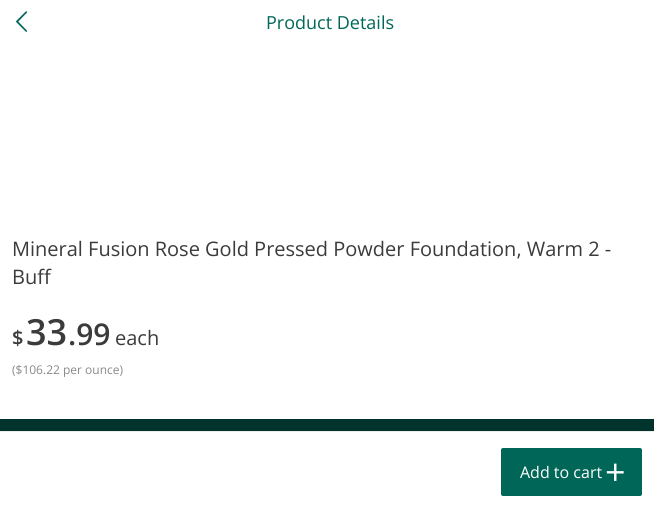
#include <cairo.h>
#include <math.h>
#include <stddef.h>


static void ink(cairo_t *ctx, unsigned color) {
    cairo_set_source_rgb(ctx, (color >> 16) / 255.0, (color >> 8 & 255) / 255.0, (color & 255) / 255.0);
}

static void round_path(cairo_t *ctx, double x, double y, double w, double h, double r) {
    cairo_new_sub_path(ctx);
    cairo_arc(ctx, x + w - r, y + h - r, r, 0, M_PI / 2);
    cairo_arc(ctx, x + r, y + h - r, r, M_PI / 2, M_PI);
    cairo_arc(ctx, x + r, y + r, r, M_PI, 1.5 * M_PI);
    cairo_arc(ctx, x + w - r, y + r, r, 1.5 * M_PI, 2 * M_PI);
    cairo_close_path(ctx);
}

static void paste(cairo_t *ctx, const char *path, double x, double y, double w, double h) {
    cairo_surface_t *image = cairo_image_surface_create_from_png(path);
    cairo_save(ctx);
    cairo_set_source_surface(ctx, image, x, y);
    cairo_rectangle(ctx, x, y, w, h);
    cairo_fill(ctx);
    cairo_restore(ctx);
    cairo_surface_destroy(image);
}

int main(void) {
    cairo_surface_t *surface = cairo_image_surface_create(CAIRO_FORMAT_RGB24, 654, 515);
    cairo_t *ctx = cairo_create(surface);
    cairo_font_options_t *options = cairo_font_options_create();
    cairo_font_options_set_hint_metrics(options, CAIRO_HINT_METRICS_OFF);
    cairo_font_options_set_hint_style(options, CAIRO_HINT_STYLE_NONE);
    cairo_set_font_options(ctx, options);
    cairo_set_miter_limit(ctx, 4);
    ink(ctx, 0xFFFFFF);
    cairo_paint(ctx);
    paste(ctx, "media/1.png", 16, 11, 12, 21);
    cairo_select_font_face(ctx, "Open Sans", CAIRO_FONT_SLANT_NORMAL, CAIRO_FONT_WEIGHT_NORMAL);
    cairo_set_font_size(ctx, 18);
    ink(ctx, 0x006657);
    cairo_move_to(ctx, 266, 29);
    cairo_show_text(ctx, "Product Details");
    cairo_set_font_size(ctx, 20);
    ink(ctx, 0x3C3B3B);
    cairo_move_to(ctx, 12, 256);
    cairo_show_text(ctx, "Mineral Fusion Rose Gold Pressed Powder Foundation, Warm 2 -");
    cairo_move_to(ctx, 12, 284);
    cairo_show_text(ctx, "Buff");
    cairo_select_font_face(ctx, "Open Sans SemiBold", CAIRO_FONT_SLANT_NORMAL, CAIRO_FONT_WEIGHT_NORMAL);
    cairo_move_to(ctx, 12, 345);
    cairo_show_text(ctx, "$");
    cairo_set_font_size(ctx, 36);
    cairo_move_to(ctx, 26, 345);
    cairo_show_text(ctx, "33");
    cairo_set_font_size(ctx, 30);
    cairo_move_to(ctx, 68, 345);
    cairo_show_text(ctx, ".99");
    cairo_select_font_face(ctx, "Open Sans", CAIRO_FONT_SLANT_NORMAL, CAIRO_FONT_WEIGHT_NORMAL);
    cairo_set_font_size(ctx, 20);
    cairo_move_to(ctx, 115, 345);
    cairo_show_text(ctx, "each");
    cairo_set_font_size(ctx, 12);
    ink(ctx, 0x8A8989);
    cairo_move_to(ctx, 12, 374);
    cairo_show_text(ctx, "($106.22 per ounce)");
    ink(ctx, 0x00332C);
    cairo_rectangle(ctx, 0, 419, 654, 12);
    cairo_fill(ctx);
    ink(ctx, 0xEDEDED);
    cairo_rectangle(ctx, 0, 431, 654, 1);
    cairo_fill(ctx);
    ink(ctx, 0x006657);
    round_path(ctx, 501, 448, 141, 48, 2);
    cairo_fill(ctx);
    cairo_set_font_size(ctx, 16);
    ink(ctx, 0xFFFFFF);
    cairo_move_to(ctx, 520, 478);
    cairo_show_text(ctx, "Add to cart");
    cairo_set_font_size(ctx, 36);
    cairo_move_to(ctx, 605, 485);
    cairo_show_text(ctx, "+");
    cairo_surface_write_to_png(surface, "image.png");
    cairo_font_options_destroy(options);
    cairo_destroy(ctx);
    cairo_surface_destroy(surface);
    return 0;
}
